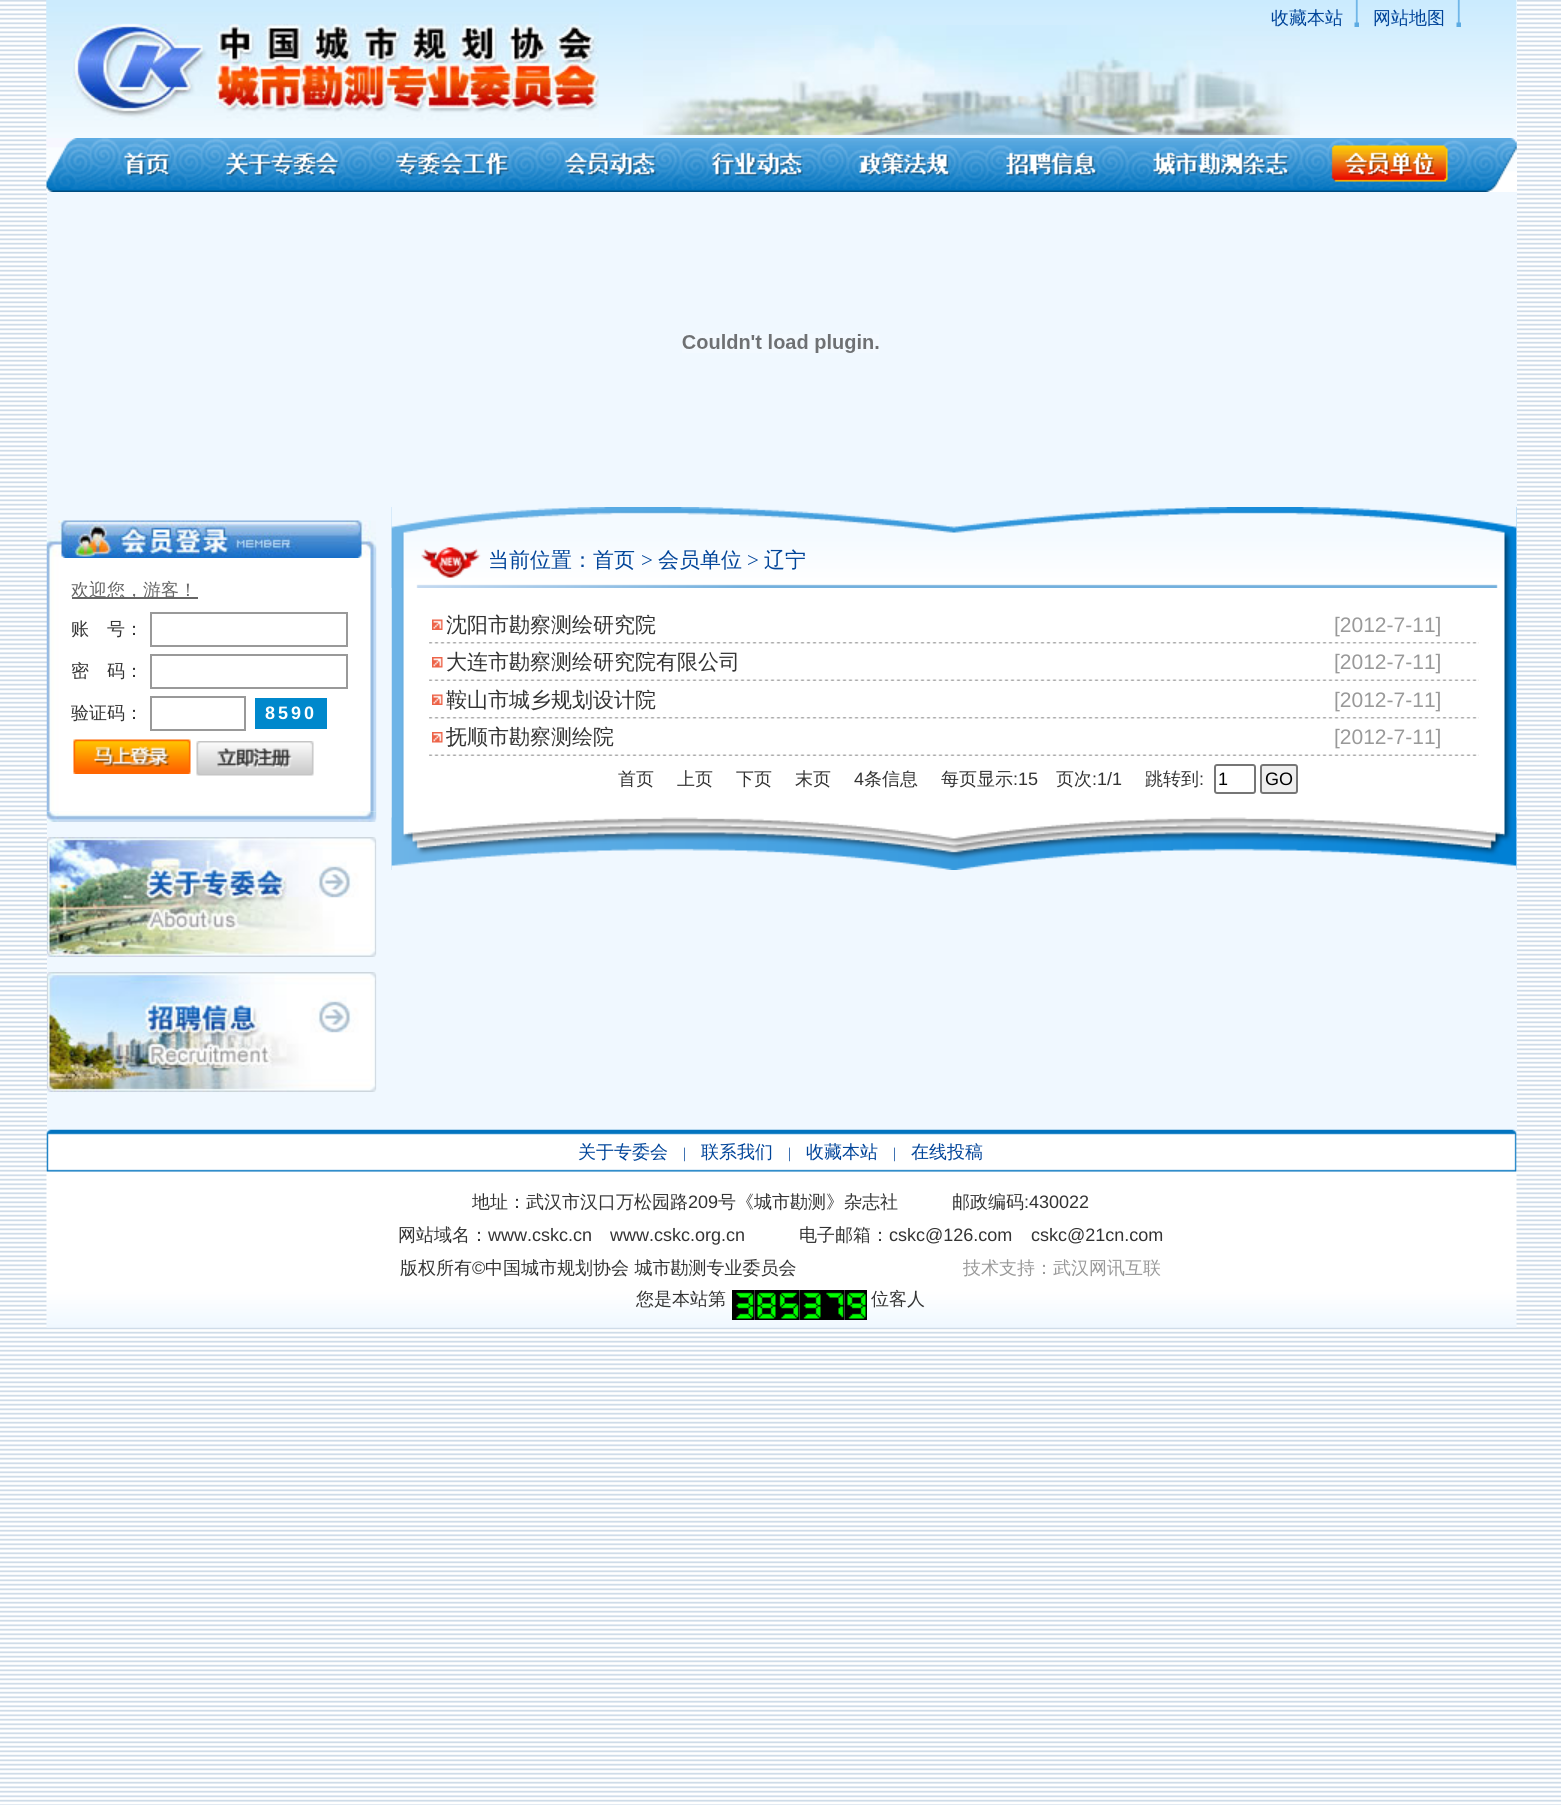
#include <cairo.h>
#include <math.h>
#include <stddef.h>

typedef struct { double x, y; const char *s; } line_t;

static void ink(cairo_t *ctx, unsigned color) {
    cairo_set_source_rgb(ctx, (color >> 16) / 255.0, (color >> 8 & 255) / 255.0, (color & 255) / 255.0);
}

static void write_spaced(cairo_t *ctx, double x, double y, const char *s, double letter, double word) {
    cairo_move_to(ctx, x, y);
    while (*s) {
        char ch[5] = {0};
        int n = 0;
        do ch[n++] = *s++; while ((*s & 0xC0) == 0x80);
        cairo_show_text(ctx, ch);
        cairo_rel_move_to(ctx, letter + word * (*ch == ' '), 0);
    }
}

static void round_path(cairo_t *ctx, double x, double y, double w, double h, double r) {
    cairo_new_sub_path(ctx);
    cairo_arc(ctx, x + w - r, y + h - r, r, 0, M_PI / 2);
    cairo_arc(ctx, x + r, y + h - r, r, M_PI / 2, M_PI);
    cairo_arc(ctx, x + r, y + r, r, M_PI, 1.5 * M_PI);
    cairo_arc(ctx, x + w - r, y + r, r, 1.5 * M_PI, 2 * M_PI);
    cairo_close_path(ctx);
}

static void paste(cairo_t *ctx, const char *path, double x, double y, double w, double h) {
    cairo_surface_t *image = cairo_image_surface_create_from_png(path);
    cairo_save(ctx);
    cairo_set_source_surface(ctx, image, x, y);
    cairo_rectangle(ctx, x, y, w, h);
    cairo_fill(ctx);
    cairo_restore(ctx);
    cairo_surface_destroy(image);
}

int main(void) {
    cairo_surface_t *surface = cairo_image_surface_create(CAIRO_FORMAT_RGB24, 1561, 1805);
    cairo_t *ctx = cairo_create(surface);
    cairo_font_options_t *options = cairo_font_options_create();
    cairo_font_options_set_hint_metrics(options, CAIRO_HINT_METRICS_OFF);
    cairo_font_options_set_hint_style(options, CAIRO_HINT_STYLE_NONE);
    cairo_set_font_options(ctx, options);
    cairo_set_miter_limit(ctx, 4);
    ink(ctx, 0xFFFFFF);
    cairo_paint(ctx);
    paste(ctx, "media/1.png", 0, 0, 1561, 1805);
    ink(ctx, 0xFFFFFF);
    cairo_rectangle(ctx, 1516, 0, 1, 191);
    cairo_fill(ctx);
    paste(ctx, "media/2.png", 46, 0, 1471, 191);
    paste(ctx, "media/3.png", 643, 25, 657, 110);
    paste(ctx, "media/4.png", 46, 0, 553, 132);
    paste(ctx, "media/5.png", 1354, 0, 5, 27);
    cairo_select_font_face(ctx, "WenQuanYi Zen Hei Medium", CAIRO_FONT_SLANT_NORMAL, CAIRO_FONT_WEIGHT_NORMAL);
    cairo_set_font_size(ctx, 18);
    ink(ctx, 0x004499);
    cairo_move_to(ctx, 1271, 24);
    cairo_show_text(ctx, "收藏本站");
    paste(ctx, "media/5.png", 1456, 0, 5, 27);
    cairo_move_to(ctx, 1373, 24);
    cairo_show_text(ctx, "网站地图");
    paste(ctx, "media/6.png", 46, 138, 1471, 54);
    paste(ctx, "media/7.png", 1331, 141, 186, 41);
    ink(ctx, 0xF0F8FF);
    cairo_rectangle(ctx, 47, 192, 1470, 938);
    cairo_fill(ctx);
    paste(ctx, "media/8.png", 682, 334, 197, 19);
    paste(ctx, "media/9.png", 46, 520, 331, 38);
    paste(ctx, "media/10.png", 46, 558, 331, 254);
    ink(ctx, 0x666666);
    cairo_rectangle(ctx, 72, 597, 126, 2);
    cairo_fill(ctx);
    cairo_move_to(ctx, 71, 596);
    cairo_show_text(ctx, "欢迎您，游客！");
    ink(ctx, 0x333333);
    cairo_move_to(ctx, 71, 635);
    cairo_show_text(ctx, "账　号：");
    cairo_rectangle(ctx, 151, 613, 196, 33);
    ink(ctx, 0x999999);
    cairo_stroke(ctx);
    ink(ctx, 0x333333);
    cairo_move_to(ctx, 71, 677);
    cairo_show_text(ctx, "密　码：");
    cairo_rectangle(ctx, 151, 655, 196, 33);
    ink(ctx, 0x999999);
    cairo_stroke(ctx);
    ink(ctx, 0x333333);
    cairo_move_to(ctx, 71, 719);
    cairo_show_text(ctx, "验证码：");
    cairo_rectangle(ctx, 151, 697, 94, 33);
    ink(ctx, 0x999999);
    cairo_stroke(ctx);
    ink(ctx, 0x0088CC);
    cairo_rectangle(ctx, 255, 698, 72, 31);
    cairo_fill(ctx);
    cairo_select_font_face(ctx, "Liberation Sans", CAIRO_FONT_SLANT_NORMAL, CAIRO_FONT_WEIGHT_BOLD);
    ink(ctx, 0xFFFFFF);
    write_spaced(ctx, 265, 719, "8590", 3, 0);
    paste(ctx, "media/11.png", 73, 739, 118, 35);
    paste(ctx, "media/12.png", 196, 741, 118, 35);
    paste(ctx, "media/13.png", 46, 811, 331, 11);
    paste(ctx, "media/14.png", 46, 837, 331, 120);
    paste(ctx, "media/15.png", 46, 972, 331, 120);
    paste(ctx, "media/16.png", 391, 507, 1126, 363);
    paste(ctx, "media/17.png", 391, 507, 1126, 81);
    cairo_select_font_face(ctx, "WenQuanYi Zen Hei Medium", CAIRO_FONT_SLANT_NORMAL, CAIRO_FONT_WEIGHT_NORMAL);
    cairo_set_font_size(ctx, 21);
    ink(ctx, 0x004499);
    cairo_move_to(ctx, 488, 567);
    cairo_show_text(ctx, "当前位置：首页");
    cairo_select_font_face(ctx, "Liberation Serif", CAIRO_FONT_SLANT_NORMAL, CAIRO_FONT_WEIGHT_NORMAL);
    cairo_move_to(ctx, 641, 567);
    cairo_show_text(ctx, ">");
    cairo_select_font_face(ctx, "WenQuanYi Zen Hei Medium", CAIRO_FONT_SLANT_NORMAL, CAIRO_FONT_WEIGHT_NORMAL);
    cairo_move_to(ctx, 658, 567);
    cairo_show_text(ctx, "会员单位");
    cairo_select_font_face(ctx, "Liberation Serif", CAIRO_FONT_SLANT_NORMAL, CAIRO_FONT_WEIGHT_NORMAL);
    cairo_move_to(ctx, 747, 567);
    cairo_show_text(ctx, ">");
    cairo_select_font_face(ctx, "WenQuanYi Zen Hei Medium", CAIRO_FONT_SLANT_NORMAL, CAIRO_FONT_WEIGHT_NORMAL);
    cairo_move_to(ctx, 764, 567);
    cairo_show_text(ctx, "辽宁");
    paste(ctx, "media/18.png", 429, 642, 1050, 2);
    paste(ctx, "media/19.png", 432, 619, 11, 11);
    ink(ctx, 0x333333);
    cairo_move_to(ctx, 446, 632);
    cairo_show_text(ctx, "沈阳市勘察测绘研究院");
    cairo_select_font_face(ctx, "Liberation Sans", CAIRO_FONT_SLANT_NORMAL, CAIRO_FONT_WEIGHT_NORMAL);
    ink(ctx, 0x999999);
    cairo_move_to(ctx, 1334, 632);
    cairo_show_text(ctx, "[2012-7-11]");
    paste(ctx, "media/20.png", 429, 679, 1050, 2);
    paste(ctx, "media/21.png", 432, 657, 11, 11);
    cairo_select_font_face(ctx, "WenQuanYi Zen Hei Medium", CAIRO_FONT_SLANT_NORMAL, CAIRO_FONT_WEIGHT_NORMAL);
    ink(ctx, 0x333333);
    cairo_move_to(ctx, 446, 669);
    cairo_show_text(ctx, "大连市勘察测绘研究院有限公司");
    cairo_select_font_face(ctx, "Liberation Sans", CAIRO_FONT_SLANT_NORMAL, CAIRO_FONT_WEIGHT_NORMAL);
    ink(ctx, 0x999999);
    cairo_move_to(ctx, 1334, 669);
    cairo_show_text(ctx, "[2012-7-11]");
    paste(ctx, "media/18.png", 429, 717, 1050, 2);
    paste(ctx, "media/19.png", 432, 694, 11, 11);
    cairo_select_font_face(ctx, "WenQuanYi Zen Hei Medium", CAIRO_FONT_SLANT_NORMAL, CAIRO_FONT_WEIGHT_NORMAL);
    ink(ctx, 0x333333);
    cairo_move_to(ctx, 446, 707);
    cairo_show_text(ctx, "鞍山市城乡规划设计院");
    cairo_select_font_face(ctx, "Liberation Sans", CAIRO_FONT_SLANT_NORMAL, CAIRO_FONT_WEIGHT_NORMAL);
    ink(ctx, 0x999999);
    cairo_move_to(ctx, 1334, 707);
    cairo_show_text(ctx, "[2012-7-11]");
    paste(ctx, "media/20.png", 429, 754, 1050, 2);
    paste(ctx, "media/21.png", 432, 732, 11, 11);
    cairo_select_font_face(ctx, "WenQuanYi Zen Hei Medium", CAIRO_FONT_SLANT_NORMAL, CAIRO_FONT_WEIGHT_NORMAL);
    ink(ctx, 0x333333);
    cairo_move_to(ctx, 446, 744);
    cairo_show_text(ctx, "抚顺市勘察测绘院");
    cairo_select_font_face(ctx, "Liberation Sans", CAIRO_FONT_SLANT_NORMAL, CAIRO_FONT_WEIGHT_NORMAL);
    ink(ctx, 0x999999);
    cairo_move_to(ctx, 1334, 744);
    cairo_show_text(ctx, "[2012-7-11]");
    cairo_select_font_face(ctx, "WenQuanYi Zen Hei Medium", CAIRO_FONT_SLANT_NORMAL, CAIRO_FONT_WEIGHT_NORMAL);
    cairo_set_font_size(ctx, 18);
    ink(ctx, 0x333333);
    {
        static const line_t items[] = {
            {618, 785, "首页"},
            {677, 785, "上页"},
            {736, 785, "下页"},
            {795, 785, "末页"},
        };
        for (size_t i = 0; i < sizeof items / sizeof *items; i++) {
            cairo_move_to(ctx, items[i].x, items[i].y);
            cairo_show_text(ctx, items[i].s);
        }
    }
    cairo_select_font_face(ctx, "Liberation Sans", CAIRO_FONT_SLANT_NORMAL, CAIRO_FONT_WEIGHT_NORMAL);
    cairo_move_to(ctx, 854, 785);
    cairo_show_text(ctx, "4");
    cairo_select_font_face(ctx, "WenQuanYi Zen Hei Medium", CAIRO_FONT_SLANT_NORMAL, CAIRO_FONT_WEIGHT_NORMAL);
    cairo_move_to(ctx, 864, 785);
    cairo_show_text(ctx, "条信息");
    cairo_move_to(ctx, 941, 785);
    cairo_show_text(ctx, "每页显示");
    cairo_select_font_face(ctx, "Liberation Sans", CAIRO_FONT_SLANT_NORMAL, CAIRO_FONT_WEIGHT_NORMAL);
    cairo_move_to(ctx, 1013, 785);
    cairo_show_text(ctx, ":15");
    cairo_select_font_face(ctx, "WenQuanYi Zen Hei Medium", CAIRO_FONT_SLANT_NORMAL, CAIRO_FONT_WEIGHT_NORMAL);
    cairo_move_to(ctx, 1056, 785);
    cairo_show_text(ctx, "页次");
    cairo_select_font_face(ctx, "Liberation Sans", CAIRO_FONT_SLANT_NORMAL, CAIRO_FONT_WEIGHT_NORMAL);
    cairo_move_to(ctx, 1092, 785);
    cairo_show_text(ctx, ":1/1");
    cairo_select_font_face(ctx, "WenQuanYi Zen Hei Medium", CAIRO_FONT_SLANT_NORMAL, CAIRO_FONT_WEIGHT_NORMAL);
    cairo_move_to(ctx, 1145, 785);
    cairo_show_text(ctx, "跳转到");
    cairo_select_font_face(ctx, "Liberation Sans", CAIRO_FONT_SLANT_NORMAL, CAIRO_FONT_WEIGHT_NORMAL);
    cairo_move_to(ctx, 1199, 785);
    cairo_show_text(ctx, ":");
    round_path(ctx, 1215, 765, 40, 28, 2);
    ink(ctx, 0x767676);
    cairo_stroke(ctx);
    ink(ctx, 0x000000);
    cairo_move_to(ctx, 1218, 785);
    cairo_show_text(ctx, "1");
    ink(ctx, 0xEFEFEF);
    round_path(ctx, 1261, 765, 36, 28, 2);
    cairo_fill_preserve(ctx);
    ink(ctx, 0x767676);
    cairo_stroke(ctx);
    ink(ctx, 0x000000);
    cairo_move_to(ctx, 1265, 785);
    cairo_show_text(ctx, "GO");
    paste(ctx, "media/22.png", 391, 817, 1126, 53);
    paste(ctx, "media/23.png", 46, 1171, 1471, 157);
    paste(ctx, "media/24.png", 46, 1129, 1471, 43);
    cairo_select_font_face(ctx, "WenQuanYi Zen Hei Medium", CAIRO_FONT_SLANT_NORMAL, CAIRO_FONT_WEIGHT_NORMAL);
    ink(ctx, 0x004499);
    cairo_move_to(ctx, 578, 1158);
    cairo_show_text(ctx, "关于专委会");
    cairo_select_font_face(ctx, "Liberation Serif", CAIRO_FONT_SLANT_NORMAL, CAIRO_FONT_WEIGHT_NORMAL);
    cairo_set_font_size(ctx, 15);
    cairo_move_to(ctx, 683, 1158);
    cairo_show_text(ctx, "|");
    cairo_select_font_face(ctx, "WenQuanYi Zen Hei Medium", CAIRO_FONT_SLANT_NORMAL, CAIRO_FONT_WEIGHT_NORMAL);
    cairo_set_font_size(ctx, 18);
    cairo_move_to(ctx, 701, 1158);
    cairo_show_text(ctx, "联系我们");
    cairo_select_font_face(ctx, "Liberation Serif", CAIRO_FONT_SLANT_NORMAL, CAIRO_FONT_WEIGHT_NORMAL);
    cairo_set_font_size(ctx, 15);
    cairo_move_to(ctx, 788, 1158);
    cairo_show_text(ctx, "|");
    cairo_select_font_face(ctx, "WenQuanYi Zen Hei Medium", CAIRO_FONT_SLANT_NORMAL, CAIRO_FONT_WEIGHT_NORMAL);
    cairo_set_font_size(ctx, 18);
    cairo_move_to(ctx, 806, 1158);
    cairo_show_text(ctx, "收藏本站");
    cairo_select_font_face(ctx, "Liberation Serif", CAIRO_FONT_SLANT_NORMAL, CAIRO_FONT_WEIGHT_NORMAL);
    cairo_set_font_size(ctx, 15);
    cairo_move_to(ctx, 893, 1158);
    cairo_show_text(ctx, "|");
    cairo_select_font_face(ctx, "WenQuanYi Zen Hei Medium", CAIRO_FONT_SLANT_NORMAL, CAIRO_FONT_WEIGHT_NORMAL);
    cairo_set_font_size(ctx, 18);
    cairo_move_to(ctx, 911, 1158);
    cairo_show_text(ctx, "在线投稿");
    ink(ctx, 0x333333);
    cairo_move_to(ctx, 472, 1208);
    cairo_show_text(ctx, "地址：武汉市汉口万松园路");
    cairo_select_font_face(ctx, "Liberation Sans", CAIRO_FONT_SLANT_NORMAL, CAIRO_FONT_WEIGHT_NORMAL);
    cairo_move_to(ctx, 688, 1208);
    cairo_show_text(ctx, "209");
    cairo_select_font_face(ctx, "WenQuanYi Zen Hei Medium", CAIRO_FONT_SLANT_NORMAL, CAIRO_FONT_WEIGHT_NORMAL);
    cairo_move_to(ctx, 718, 1208);
    cairo_show_text(ctx, "号《城市勘测》杂志社　　　邮政编码");
    cairo_select_font_face(ctx, "Liberation Sans", CAIRO_FONT_SLANT_NORMAL, CAIRO_FONT_WEIGHT_NORMAL);
    cairo_move_to(ctx, 1024, 1208);
    cairo_show_text(ctx, ":430022");
    cairo_select_font_face(ctx, "WenQuanYi Zen Hei Medium", CAIRO_FONT_SLANT_NORMAL, CAIRO_FONT_WEIGHT_NORMAL);
    cairo_move_to(ctx, 398, 1241);
    cairo_show_text(ctx, "网站域名：");
    cairo_select_font_face(ctx, "Liberation Sans", CAIRO_FONT_SLANT_NORMAL, CAIRO_FONT_WEIGHT_NORMAL);
    cairo_move_to(ctx, 488, 1241);
    cairo_show_text(ctx, "www.cskc.cn");
    cairo_move_to(ctx, 610, 1241);
    cairo_show_text(ctx, "www.cskc.org.cn");
    cairo_select_font_face(ctx, "WenQuanYi Zen Hei Medium", CAIRO_FONT_SLANT_NORMAL, CAIRO_FONT_WEIGHT_NORMAL);
    cairo_move_to(ctx, 799, 1241);
    cairo_show_text(ctx, "电子邮箱：");
    cairo_select_font_face(ctx, "Liberation Sans", CAIRO_FONT_SLANT_NORMAL, CAIRO_FONT_WEIGHT_NORMAL);
    cairo_move_to(ctx, 889, 1241);
    cairo_show_text(ctx, "cskc@126.com");
    cairo_move_to(ctx, 1031, 1241);
    cairo_show_text(ctx, "cskc@21cn.com");
    cairo_select_font_face(ctx, "WenQuanYi Zen Hei Medium", CAIRO_FONT_SLANT_NORMAL, CAIRO_FONT_WEIGHT_NORMAL);
    cairo_move_to(ctx, 400, 1274);
    cairo_show_text(ctx, "版权所有");
    cairo_select_font_face(ctx, "Liberation Sans", CAIRO_FONT_SLANT_NORMAL, CAIRO_FONT_WEIGHT_NORMAL);
    cairo_move_to(ctx, 472, 1274);
    cairo_show_text(ctx, "©");
    cairo_select_font_face(ctx, "WenQuanYi Zen Hei Medium", CAIRO_FONT_SLANT_NORMAL, CAIRO_FONT_WEIGHT_NORMAL);
    cairo_move_to(ctx, 485, 1274);
    cairo_show_text(ctx, "中国城市规划协会 城市勘测专业委员会");
    ink(ctx, 0x999999);
    cairo_move_to(ctx, 963, 1274);
    cairo_show_text(ctx, "技术支持：武汉网讯互联");
    ink(ctx, 0x333333);
    cairo_move_to(ctx, 636, 1305);
    cairo_show_text(ctx, "您是本站第");
    paste(ctx, "media/25.png", 732, 1290, 23, 30);
    paste(ctx, "media/26.png", 754, 1290, 23, 30);
    paste(ctx, "media/27.png", 777, 1290, 23, 30);
    paste(ctx, "media/28.png", 799, 1290, 23, 30);
    paste(ctx, "media/29.png", 822, 1290, 23, 30);
    paste(ctx, "media/30.png", 844, 1290, 23, 30);
    cairo_move_to(ctx, 871, 1305);
    cairo_show_text(ctx, "位客人");
    cairo_surface_write_to_png(surface, "image.png");
    cairo_font_options_destroy(options);
    cairo_destroy(ctx);
    cairo_surface_destroy(surface);
    return 0;
}
